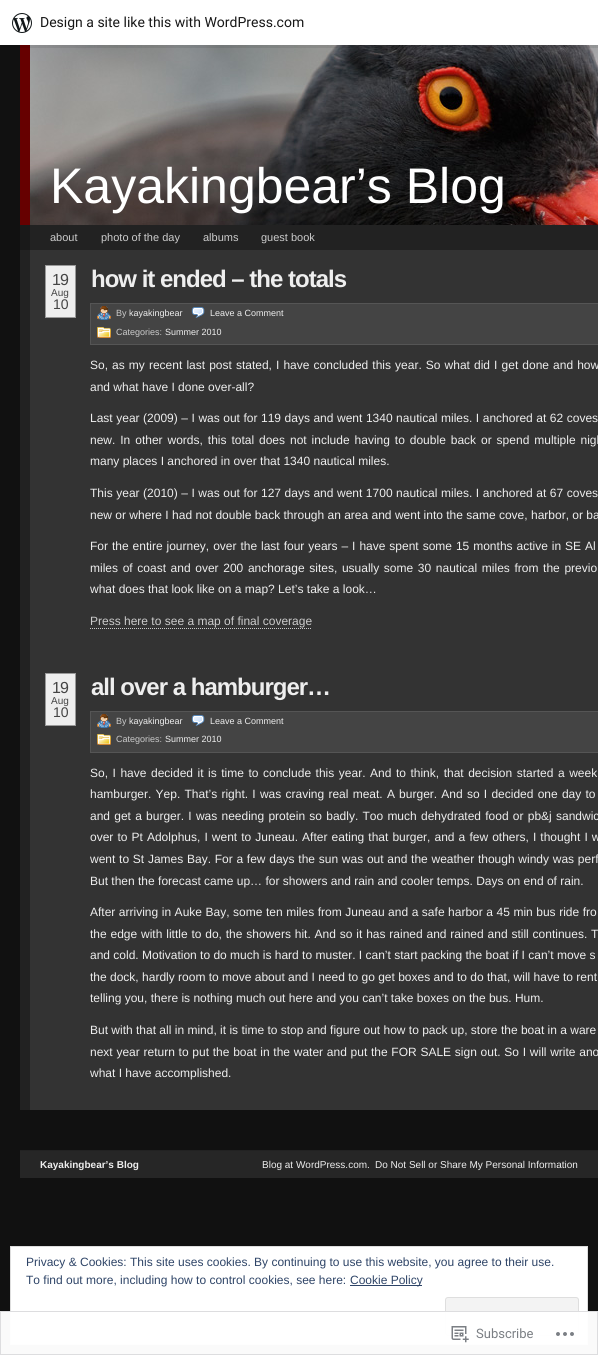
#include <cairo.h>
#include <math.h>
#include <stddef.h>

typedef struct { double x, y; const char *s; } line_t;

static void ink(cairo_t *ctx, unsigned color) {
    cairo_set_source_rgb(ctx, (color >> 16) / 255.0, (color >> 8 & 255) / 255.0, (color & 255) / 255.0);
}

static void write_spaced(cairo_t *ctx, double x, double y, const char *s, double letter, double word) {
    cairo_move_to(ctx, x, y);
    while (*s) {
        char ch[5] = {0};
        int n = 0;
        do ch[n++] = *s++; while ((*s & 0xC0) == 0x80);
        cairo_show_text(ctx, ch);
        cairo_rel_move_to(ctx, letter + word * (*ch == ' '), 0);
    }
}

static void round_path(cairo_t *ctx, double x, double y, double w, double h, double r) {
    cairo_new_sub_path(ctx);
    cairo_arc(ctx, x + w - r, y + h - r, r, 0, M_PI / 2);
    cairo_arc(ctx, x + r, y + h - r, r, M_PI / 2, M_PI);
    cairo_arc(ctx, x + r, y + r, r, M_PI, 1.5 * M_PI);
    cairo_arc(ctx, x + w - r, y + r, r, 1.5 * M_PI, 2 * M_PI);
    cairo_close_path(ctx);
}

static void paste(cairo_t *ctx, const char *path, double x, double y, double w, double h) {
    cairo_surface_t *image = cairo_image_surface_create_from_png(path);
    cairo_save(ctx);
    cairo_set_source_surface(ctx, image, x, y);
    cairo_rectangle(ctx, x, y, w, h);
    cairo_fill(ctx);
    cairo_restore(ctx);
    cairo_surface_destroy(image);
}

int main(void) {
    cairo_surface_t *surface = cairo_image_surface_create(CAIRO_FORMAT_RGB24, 598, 1355);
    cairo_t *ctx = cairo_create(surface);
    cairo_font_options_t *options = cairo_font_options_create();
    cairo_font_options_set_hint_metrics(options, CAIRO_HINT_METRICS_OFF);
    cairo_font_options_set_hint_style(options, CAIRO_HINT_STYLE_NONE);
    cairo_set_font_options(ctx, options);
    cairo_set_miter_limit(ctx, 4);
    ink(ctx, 0x111111);
    cairo_paint(ctx);
    paste(ctx, "media/2.png", 30, 45, 568, 180);
    ink(ctx, 0x660000);
    cairo_rectangle(ctx, 20, 45, 10, 180);
    cairo_fill(ctx);
    cairo_set_source_rgba(ctx, 0, 0, 0, 0.08);
    cairo_new_path(ctx);
    cairo_move_to(ctx, 1, 45);
    cairo_line_to(ctx, 1, 48);
    cairo_line_to(ctx, 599, 48);
    cairo_line_to(ctx, 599, 3);
    cairo_line_to(ctx, 598, 3);
    cairo_line_to(ctx, 598, 45);
    cairo_close_path(ctx);
    cairo_fill(ctx);
    ink(ctx, 0xFFFFFF);
    cairo_rectangle(ctx, 0, 0, 598, 45);
    cairo_fill(ctx);
    paste(ctx, "media/1.png", 12, 13, 20, 20);
    cairo_select_font_face(ctx, "Roboto", CAIRO_FONT_SLANT_NORMAL, CAIRO_FONT_WEIGHT_NORMAL);
    cairo_set_font_size(ctx, 14);
    ink(ctx, 0x171717);
    cairo_move_to(ctx, 40, 27);
    cairo_show_text(ctx, "Design a site like this with WordPress.com");
    cairo_select_font_face(ctx, "Liberation Sans", CAIRO_FONT_SLANT_NORMAL, CAIRO_FONT_WEIGHT_NORMAL);
    cairo_set_font_size(ctx, 50);
    ink(ctx, 0xFFFFFF);
    cairo_move_to(ctx, 50, 203);
    cairo_show_text(ctx, "Kayakingbear’s Blog");
    ink(ctx, 0x222222);
    cairo_rectangle(ctx, 30, 225, 568, 25);
    cairo_fill(ctx);
    ink(ctx, 0x191919);
    cairo_rectangle(ctx, 20, 225, 10, 25);
    cairo_fill(ctx);
    cairo_set_font_size(ctx, 11);
    ink(ctx, 0xCCCCCC);
    {
        static const line_t items[] = {
            {50, 241, "about"},
            {101, 241, "photo of the day"},
            {203, 241, "albums"},
            {261, 241, "guest book"},
        };
        for (size_t i = 0; i < sizeof items / sizeof *items; i++) {
            cairo_move_to(ctx, items[i].x, items[i].y);
            cairo_show_text(ctx, items[i].s);
        }
    }
    ink(ctx, 0x333333);
    cairo_rectangle(ctx, 30, 250, 568, 860);
    cairo_fill(ctx);
    ink(ctx, 0x222222);
    cairo_rectangle(ctx, 20, 250, 10, 860);
    cairo_fill(ctx);
    ink(ctx, 0xEEEEEE);
    cairo_rectangle(ctx, 45.5, 265.5, 30, 52);
    cairo_fill_preserve(ctx);
    ink(ctx, 0x999999);
    cairo_set_line_width(ctx, 1);
    cairo_stroke(ctx);
    cairo_set_font_size(ctx, 16);
    ink(ctx, 0x444444);
    write_spaced(ctx, 52, 285, "19", -1, 0);
    cairo_set_font_size(ctx, 10);
    cairo_move_to(ctx, 51, 296);
    cairo_show_text(ctx, "Aug");
    cairo_set_font_size(ctx, 14);
    cairo_move_to(ctx, 53, 309);
    cairo_show_text(ctx, "10");
    cairo_select_font_face(ctx, "Liberation Sans", CAIRO_FONT_SLANT_NORMAL, CAIRO_FONT_WEIGHT_BOLD);
    cairo_set_font_size(ctx, 24);
    ink(ctx, 0xEEEEEE);
    write_spaced(ctx, 91, 287, "how it ended – the totals", -1, 0);
    ink(ctx, 0x444444);
    cairo_rectangle(ctx, 90.5, 303.5, 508, 41);
    cairo_fill_preserve(ctx);
    ink(ctx, 0x555555);
    cairo_stroke(ctx);
    paste(ctx, "media/3.png", 97, 306, 14, 14);
    cairo_select_font_face(ctx, "Liberation Sans", CAIRO_FONT_SLANT_NORMAL, CAIRO_FONT_WEIGHT_NORMAL);
    cairo_set_font_size(ctx, 9);
    ink(ctx, 0xCCCCCC);
    cairo_move_to(ctx, 116, 316);
    cairo_show_text(ctx, "By");
    ink(ctx, 0xEEEEEE);
    cairo_move_to(ctx, 129, 316);
    cairo_show_text(ctx, "kayakingbear");
    paste(ctx, "media/4.png", 191, 307, 14, 11);
    cairo_move_to(ctx, 210, 316);
    cairo_show_text(ctx, "Leave a Comment");
    paste(ctx, "media/5.png", 97, 327, 14, 11);
    ink(ctx, 0xCCCCCC);
    cairo_move_to(ctx, 116, 335);
    cairo_show_text(ctx, "Categories:");
    ink(ctx, 0xEEEEEE);
    cairo_move_to(ctx, 165, 335);
    cairo_show_text(ctx, "Summer 2010");
    cairo_set_font_size(ctx, 12);
    write_spaced(ctx, 90, 369, "So, as my recent last post stated, I have concluded this year. So what did I get done and how", 0, 0.75);
    cairo_move_to(ctx, 90, 391);
    cairo_show_text(ctx, "and what have I done over-all?");
    write_spaced(ctx, 90, 422, "Last year (2009) – I was out for 119 days and went 1340 nautical miles. I anchored at 62 coves", 0, 0.2);
    write_spaced(ctx, 90, 444, "new. In other words, this total does not include having to double back or spend multiple nigh", 0, 1.6);
    cairo_move_to(ctx, 90, 465);
    cairo_show_text(ctx, "many places I anchored in over that 1340 nautical miles.");
    write_spaced(ctx, 90, 497, "This year (2010) – I was out for 127 days and went 1700 nautical miles. I anchored at 67 coves", 0, 0.2);
    cairo_move_to(ctx, 90, 519);
    cairo_show_text(ctx, "new or where I had not double back through an area and went into the same cove, harbor, or ba");
    write_spaced(ctx, 90, 550, "For the entire journey, over the last four years – I have spent some 15 months active in SE Al", 0, 0.6);
    write_spaced(ctx, 90, 572, "miles of coast and over 200 anchorage sites, usually some 30 nautical miles from the previo", 0, 1.3);
    cairo_move_to(ctx, 90, 593);
    cairo_show_text(ctx, "what does that look like on a map? Let’s take a look…");
    ink(ctx, 0xCCCCCC);
    cairo_move_to(ctx, 90, 625);
    cairo_show_text(ctx, "Press here to see a map of final coverage");
    cairo_new_path(ctx);
    cairo_move_to(ctx, 90, 628.5);
    cairo_line_to(ctx, 312, 628.5);
    cairo_set_dash(ctx, (double[]){1, 1}, 2, 0);
    cairo_stroke(ctx);
    ink(ctx, 0xEEEEEE);
    cairo_rectangle(ctx, 45.5, 673.5, 30, 52);
    cairo_fill_preserve(ctx);
    ink(ctx, 0x999999);
    cairo_set_dash(ctx, NULL, 0, 0);
    cairo_stroke(ctx);
    cairo_set_font_size(ctx, 16);
    ink(ctx, 0x444444);
    write_spaced(ctx, 52, 693, "19", -1, 0);
    cairo_set_font_size(ctx, 10);
    cairo_move_to(ctx, 51, 704);
    cairo_show_text(ctx, "Aug");
    cairo_set_font_size(ctx, 14);
    cairo_move_to(ctx, 53, 717);
    cairo_show_text(ctx, "10");
    cairo_select_font_face(ctx, "Liberation Sans", CAIRO_FONT_SLANT_NORMAL, CAIRO_FONT_WEIGHT_BOLD);
    cairo_set_font_size(ctx, 24);
    ink(ctx, 0xEEEEEE);
    write_spaced(ctx, 91, 695, "all over a hamburger…", -1, 0);
    ink(ctx, 0x444444);
    cairo_rectangle(ctx, 90.5, 711.5, 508, 41);
    cairo_fill_preserve(ctx);
    ink(ctx, 0x555555);
    cairo_stroke(ctx);
    paste(ctx, "media/3.png", 97, 714, 14, 14);
    cairo_select_font_face(ctx, "Liberation Sans", CAIRO_FONT_SLANT_NORMAL, CAIRO_FONT_WEIGHT_NORMAL);
    cairo_set_font_size(ctx, 9);
    ink(ctx, 0xCCCCCC);
    cairo_move_to(ctx, 116, 724);
    cairo_show_text(ctx, "By");
    ink(ctx, 0xEEEEEE);
    cairo_move_to(ctx, 129, 724);
    cairo_show_text(ctx, "kayakingbear");
    paste(ctx, "media/4.png", 191, 715, 14, 11);
    cairo_move_to(ctx, 210, 724);
    cairo_show_text(ctx, "Leave a Comment");
    paste(ctx, "media/5.png", 97, 734, 14, 11);
    ink(ctx, 0xCCCCCC);
    cairo_move_to(ctx, 116, 742);
    cairo_show_text(ctx, "Categories:");
    ink(ctx, 0xEEEEEE);
    cairo_move_to(ctx, 165, 742);
    cairo_show_text(ctx, "Summer 2010");
    cairo_set_font_size(ctx, 12);
    write_spaced(ctx, 90, 777, "So, I have decided it is time to conclude this year. And to think, that decision started a week", 0, 1.2);
    write_spaced(ctx, 90, 798, "hamburger. Yep. That’s right. I was craving real meat. A burger. And so I decided one day to", 0, 0.9);
    write_spaced(ctx, 90, 820, "and get a burger. I was needing protein so badly. Too much dehydrated food or pb&j sandwic", 0, 0.9);
    write_spaced(ctx, 90, 841, "over to Pt Adolphus, I went to Juneau. After eating that burger, and a few others, I thought I w", 0, 0.75);
    write_spaced(ctx, 90, 863, "went to St James Bay. For a few days the sun was out and the weather though windy was perf", 0, 0.4);
    cairo_move_to(ctx, 90, 885);
    cairo_show_text(ctx, "But then the forecast came up… for showers and rain and cooler temps. Days on end of rain.");
    write_spaced(ctx, 90, 916, "After arriving in Auke Bay, some ten miles from Juneau and a safe harbor a 45 min bus ride fro", 0, 0.2);
    write_spaced(ctx, 90, 938, "the edge with little to do, the showers hit. And so it has rained and rained and still continues. T", 0, 0.5);
    {
        static const line_t items[] = {
            {90, 959, "and cold. Motivation to do much is hard to muster. I can’t start packing the boat if I can’t move s"},
            {90, 981, "the dock, hardly room to move about and I need to go get boxes and to do that, will have to rent"},
            {90, 1002, "telling you, there is nothing much out here and you can’t take boxes on the bus. Hum."},
            {90, 1034, "But with that all in mind, it is time to stop and figure out how to pack up, store the boat in a ware"},
        };
        for (size_t i = 0; i < sizeof items / sizeof *items; i++) {
            cairo_move_to(ctx, items[i].x, items[i].y);
            cairo_show_text(ctx, items[i].s);
        }
    }
    write_spaced(ctx, 90, 1056, "next year return to put the boat in the water and put the FOR SALE sign out. So I will write ano", 0, 0.4);
    cairo_move_to(ctx, 90, 1077);
    cairo_show_text(ctx, "what I have accomplished.");
    ink(ctx, 0x262626);
    cairo_rectangle(ctx, 20, 1151, 578, 27);
    cairo_fill(ctx);
    ink(ctx, 0x222222);
    cairo_rectangle(ctx, 20, 1150, 578, 1);
    cairo_fill(ctx);
    cairo_select_font_face(ctx, "Liberation Sans", CAIRO_FONT_SLANT_NORMAL, CAIRO_FONT_WEIGHT_BOLD);
    cairo_set_font_size(ctx, 10);
    ink(ctx, 0xEEEEEE);
    cairo_move_to(ctx, 40, 1168);
    cairo_show_text(ctx, "Kayakingbear’s Blog");
    cairo_select_font_face(ctx, "Liberation Sans", CAIRO_FONT_SLANT_NORMAL, CAIRO_FONT_WEIGHT_NORMAL);
    cairo_move_to(ctx, 262, 1168);
    cairo_show_text(ctx, "Blog at WordPress.com.");
    cairo_move_to(ctx, 375, 1168);
    cairo_show_text(ctx, "Do Not Sell or Share My Personal Information");
    ink(ctx, 0xFFFFFF);
    cairo_rectangle(ctx, 10.5, 1246.5, 577, 98);
    cairo_fill_preserve(ctx);
    ink(ctx, 0xDEDEDE);
    cairo_stroke(ctx);
    cairo_set_font_size(ctx, 12);
    ink(ctx, 0x2E4467);
    cairo_move_to(ctx, 26, 1266);
    cairo_show_text(ctx, "Privacy & Cookies: This site uses cookies. By continuing to use this website, you agree to their use.");
    cairo_move_to(ctx, 26, 1284);
    cairo_show_text(ctx, "To find out more, including how to control cookies, see here:");
    cairo_rectangle(ctx, 350, 1285, 72, 1);
    cairo_fill(ctx);
    cairo_move_to(ctx, 350, 1284);
    cairo_show_text(ctx, "Cookie Policy");
    ink(ctx, 0xF3F3F3);
    round_path(ctx, 445.5, 1297.5, 133, 38, 2.5);
    cairo_fill_preserve(ctx);
    ink(ctx, 0xDEDEDE);
    cairo_stroke(ctx);
    cairo_set_source_rgba(ctx, 1, 1, 1, 0.98);
    cairo_rectangle(ctx, 0, 1311, 598, 44);
    cairo_fill(ctx);
    cairo_rectangle(ctx, 0.5, 1311.5, 597, 43);
    cairo_set_source_rgba(ctx, 0.863, 0.863, 0.871, 0.98);
    cairo_stroke(ctx);
    paste(ctx, "media/6.png", 451, 1326, 18, 17);
    cairo_select_font_face(ctx, "Roboto", CAIRO_FONT_SLANT_NORMAL, CAIRO_FONT_WEIGHT_NORMAL);
    cairo_set_font_size(ctx, 13);
    ink(ctx, 0x7B7F84);
    cairo_move_to(ctx, 476, 1338);
    cairo_show_text(ctx, "Subscribe");
    paste(ctx, "media/7.png", 556, 1332, 18, 4);
    cairo_surface_write_to_png(surface, "image.png");
    cairo_font_options_destroy(options);
    cairo_destroy(ctx);
    cairo_surface_destroy(surface);
    return 0;
}
